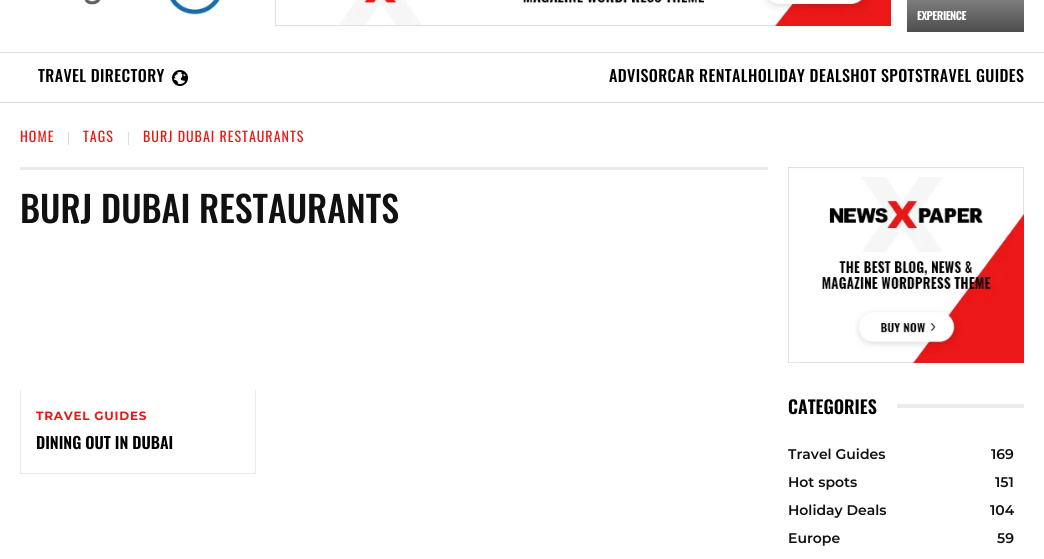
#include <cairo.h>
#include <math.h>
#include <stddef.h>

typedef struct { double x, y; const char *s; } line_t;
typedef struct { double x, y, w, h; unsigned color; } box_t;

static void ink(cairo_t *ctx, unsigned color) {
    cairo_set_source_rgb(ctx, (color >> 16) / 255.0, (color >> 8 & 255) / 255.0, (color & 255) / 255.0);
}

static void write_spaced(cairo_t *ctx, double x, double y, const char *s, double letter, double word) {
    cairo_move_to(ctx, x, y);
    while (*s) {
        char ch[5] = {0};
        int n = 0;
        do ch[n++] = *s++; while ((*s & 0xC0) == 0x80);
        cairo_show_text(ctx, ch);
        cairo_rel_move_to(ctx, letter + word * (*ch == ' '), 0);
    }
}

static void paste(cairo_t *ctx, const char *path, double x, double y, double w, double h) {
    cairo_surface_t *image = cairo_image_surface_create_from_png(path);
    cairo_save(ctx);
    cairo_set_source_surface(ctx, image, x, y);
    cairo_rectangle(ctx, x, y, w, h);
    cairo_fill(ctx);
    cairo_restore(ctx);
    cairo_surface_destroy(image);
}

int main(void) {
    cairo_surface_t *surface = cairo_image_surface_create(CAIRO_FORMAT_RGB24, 1044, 559);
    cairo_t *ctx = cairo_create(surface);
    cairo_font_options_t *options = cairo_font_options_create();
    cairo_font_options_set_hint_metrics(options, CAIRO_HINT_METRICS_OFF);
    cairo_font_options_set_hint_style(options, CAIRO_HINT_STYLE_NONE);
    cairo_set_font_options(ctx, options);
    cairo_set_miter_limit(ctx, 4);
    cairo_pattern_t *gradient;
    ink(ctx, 0xFFFFFF);
    cairo_paint(ctx);
    paste(ctx, "media/1.png", 84, 0, 137, 15);
    paste(ctx, "media/2.png", 275, 0, 616, 26);
    gradient = cairo_pattern_create_linear(966, 32, 966, -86);
    cairo_pattern_add_color_stop_rgba(gradient, 0, 0.302, 0.302, 0.302, 1);
    cairo_pattern_add_color_stop_rgba(gradient, 1, 1, 1, 1, 1);
    cairo_set_source(ctx, gradient);
    cairo_pattern_destroy(gradient);
    cairo_rectangle(ctx, 907, 0, 117, 32);
    cairo_fill(ctx);
    cairo_select_font_face(ctx, "Oswald", CAIRO_FONT_SLANT_NORMAL, CAIRO_FONT_WEIGHT_BOLD);
    cairo_set_font_size(ctx, 11);
    ink(ctx, 0xFFFFFF);
    write_spaced(ctx, 917, 20, "EXPERIENCE", -0.5, 0);
    ink(ctx, 0xDDDDDD);
    cairo_rectangle(ctx, 0, 52, 1044, 1);
    cairo_fill(ctx);
    cairo_rectangle(ctx, 0, 102, 1044, 1);
    cairo_fill(ctx);
    cairo_select_font_face(ctx, "Oswald Medium", CAIRO_FONT_SLANT_NORMAL, CAIRO_FONT_WEIGHT_NORMAL);
    cairo_set_font_size(ctx, 16);
    ink(ctx, 0x000000);
    write_spaced(ctx, 38, 82, "TRAVEL DIRECTORY", 0.4, 0);
    paste(ctx, "media/3.png", 172, 70, 16, 16);
    write_spaced(ctx, 609, 82, "ADVISORCAR RENTALHOLIDAY DEALSHOT SPOTSTRAVEL GUIDES", 0.4, 0);
    cairo_select_font_face(ctx, "Oswald", CAIRO_FONT_SLANT_NORMAL, CAIRO_FONT_WEIGHT_NORMAL);
    cairo_set_font_size(ctx, 14);
    ink(ctx, 0xEA1717);
    write_spaced(ctx, 20, 142, "HOME", 1, 0);
    ink(ctx, 0xDDDDDD);
    cairo_rectangle(ctx, 68, 132, 1, 13);
    cairo_fill(ctx);
    ink(ctx, 0xEA1717);
    write_spaced(ctx, 83, 142, "TAGS", 1, 0);
    ink(ctx, 0xDDDDDD);
    cairo_rectangle(ctx, 128, 132, 1, 13);
    cairo_fill(ctx);
    ink(ctx, 0xEA1717);
    write_spaced(ctx, 143, 142, "BURJ DUBAI RESTAURANTS", 1, 0);
    ink(ctx, 0xEAEAEA);
    cairo_rectangle(ctx, 20, 167, 748, 3);
    cairo_fill(ctx);
    cairo_select_font_face(ctx, "Oswald Medium", CAIRO_FONT_SLANT_NORMAL, CAIRO_FONT_WEIGHT_NORMAL);
    cairo_set_font_size(ctx, 36);
    ink(ctx, 0x111111);
    cairo_move_to(ctx, 20, 223);
    cairo_show_text(ctx, "BURJ DUBAI RESTAURANTS");
    {
        static const box_t items[] = {
            {255, 390, 1, 84, 0xEAEAEA},
            {20, 473, 236, 1, 0xEAEAEA},
            {20, 390, 1, 84, 0xEAEAEA},
        };
        for (size_t i = 0; i < sizeof items / sizeof *items; i++) {
            ink(ctx, items[i].color);
            cairo_rectangle(ctx, items[i].x, items[i].y, items[i].w, items[i].h);
            cairo_fill(ctx);
        }
    }
    cairo_select_font_face(ctx, "Montserrat", CAIRO_FONT_SLANT_NORMAL, CAIRO_FONT_WEIGHT_BOLD);
    cairo_set_font_size(ctx, 12);
    ink(ctx, 0xEA1717);
    write_spaced(ctx, 36, 420, "TRAVEL GUIDES", 0.75, 0);
    cairo_select_font_face(ctx, "Oswald SemiBold", CAIRO_FONT_SLANT_NORMAL, CAIRO_FONT_WEIGHT_NORMAL);
    cairo_set_font_size(ctx, 16);
    ink(ctx, 0x000000);
    cairo_move_to(ctx, 36, 449);
    cairo_show_text(ctx, "DINING OUT IN DUBAI");
    paste(ctx, "media/4.png", 788, 167, 236, 196);
    cairo_set_font_size(ctx, 18);
    cairo_move_to(ctx, 788, 414);
    cairo_show_text(ctx, "CATEGORIES");
    ink(ctx, 0xEAEAEA);
    cairo_rectangle(ctx, 897, 404, 127, 4);
    cairo_fill(ctx);
    cairo_select_font_face(ctx, "Montserrat SemiBold", CAIRO_FONT_SLANT_NORMAL, CAIRO_FONT_WEIGHT_NORMAL);
    cairo_set_font_size(ctx, 14);
    ink(ctx, 0x111111);
    {
        static const line_t items[] = {
            {788, 459, "Travel Guides"},
            {991, 459, "169"},
            {788, 487, "Hot spots"},
            {995, 487, "151"},
            {788, 515, "Holiday Deals"},
            {990, 515, "104"},
            {788, 543, "Europe"},
            {997, 543, "59"},
        };
        for (size_t i = 0; i < sizeof items / sizeof *items; i++) {
            cairo_move_to(ctx, items[i].x, items[i].y);
            cairo_show_text(ctx, items[i].s);
        }
    }
    cairo_surface_write_to_png(surface, "image.png");
    cairo_font_options_destroy(options);
    cairo_destroy(ctx);
    cairo_surface_destroy(surface);
    return 0;
}
